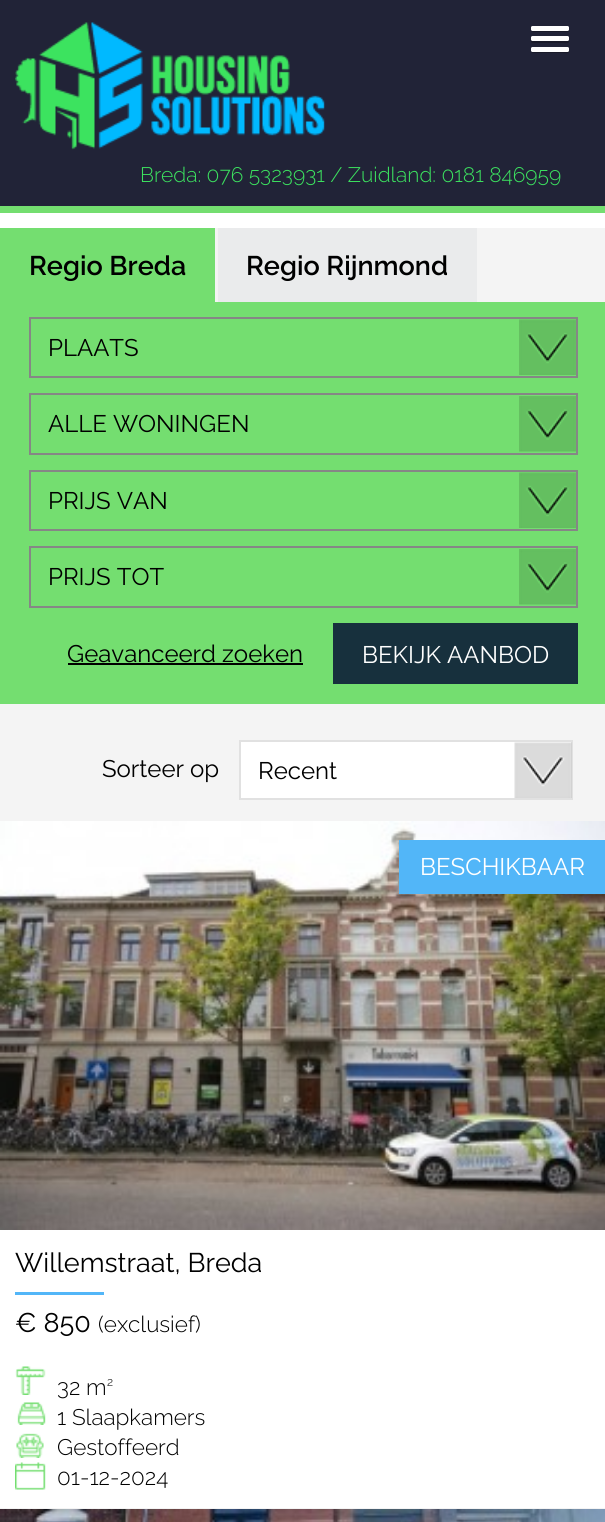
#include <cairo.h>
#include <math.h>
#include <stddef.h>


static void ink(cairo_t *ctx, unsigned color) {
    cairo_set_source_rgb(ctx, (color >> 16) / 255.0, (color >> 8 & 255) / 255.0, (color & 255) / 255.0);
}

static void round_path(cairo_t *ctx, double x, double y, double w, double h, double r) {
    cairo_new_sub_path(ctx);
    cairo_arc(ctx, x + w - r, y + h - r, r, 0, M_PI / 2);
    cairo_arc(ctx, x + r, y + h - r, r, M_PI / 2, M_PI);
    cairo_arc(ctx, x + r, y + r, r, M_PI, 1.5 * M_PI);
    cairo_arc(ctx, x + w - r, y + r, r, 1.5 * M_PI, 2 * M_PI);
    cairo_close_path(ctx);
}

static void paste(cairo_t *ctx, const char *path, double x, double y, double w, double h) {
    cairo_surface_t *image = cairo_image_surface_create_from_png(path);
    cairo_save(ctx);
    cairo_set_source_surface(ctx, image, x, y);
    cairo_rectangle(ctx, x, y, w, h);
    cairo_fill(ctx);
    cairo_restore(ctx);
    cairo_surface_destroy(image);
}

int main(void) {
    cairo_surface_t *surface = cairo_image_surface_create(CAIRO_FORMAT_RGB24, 605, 1522);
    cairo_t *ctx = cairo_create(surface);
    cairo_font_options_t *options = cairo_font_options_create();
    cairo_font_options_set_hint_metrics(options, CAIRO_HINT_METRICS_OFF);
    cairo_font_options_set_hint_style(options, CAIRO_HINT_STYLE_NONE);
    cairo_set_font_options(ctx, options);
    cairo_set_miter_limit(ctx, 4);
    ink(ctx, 0xFFFFFF);
    cairo_paint(ctx);
    ink(ctx, 0x212337);
    cairo_rectangle(ctx, 0, 0, 605, 206);
    cairo_fill(ctx);
    ink(ctx, 0x74DE70);
    cairo_rectangle(ctx, 0, 206, 605, 7);
    cairo_fill(ctx);
    paste(ctx, "media/1.png", 15, 22, 310, 128);
    ink(ctx, 0x191A29);
    cairo_new_path(ctx);
    cairo_move_to(ctx, 531, 28.5);
    cairo_curve_to(ctx, 531, 33.5, 532.5, 32, 538.5, 32);
    cairo_line_to(ctx, 561.5, 32);
    cairo_curve_to(ctx, 564, 32, 568.5, 33, 569, 31);
    cairo_curve_to(ctx, 569, 30, 569.5, 28, 568.5, 27.5);
    cairo_line_to(ctx, 568.5, 28.5);
    cairo_curve_to(ctx, 568.5, 29.5, 568, 30, 567, 30);
    cairo_line_to(ctx, 532.5, 30);
    cairo_curve_to(ctx, 531.5, 30, 531, 29.5, 531, 28.5);
    cairo_close_path(ctx);
    cairo_fill(ctx);
    ink(ctx, 0xFFFFFF);
    round_path(ctx, 531, 26, 38, 5, 1.5);
    cairo_fill(ctx);
    ink(ctx, 0x191A29);
    cairo_new_path(ctx);
    cairo_move_to(ctx, 531, 39);
    cairo_curve_to(ctx, 530, 44.5, 534, 43, 538.5, 43);
    cairo_line_to(ctx, 561.5, 43);
    cairo_curve_to(ctx, 564, 43, 568.5, 44, 569, 42);
    cairo_curve_to(ctx, 569, 41, 569.5, 39, 568.5, 38.5);
    cairo_line_to(ctx, 568.5, 39);
    cairo_curve_to(ctx, 568.5, 40, 568, 40.5, 567, 40.5);
    cairo_line_to(ctx, 532.5, 40.5);
    cairo_curve_to(ctx, 532, 40.5, 531, 40, 531, 39);
    cairo_close_path(ctx);
    cairo_fill(ctx);
    ink(ctx, 0xFFFFFF);
    round_path(ctx, 531, 36, 38, 5, 1.5);
    cairo_fill(ctx);
    ink(ctx, 0x191A29);
    cairo_new_path(ctx);
    cairo_move_to(ctx, 531, 49.5);
    cairo_curve_to(ctx, 531, 54.5, 532.5, 53, 538.5, 53);
    cairo_line_to(ctx, 561.5, 53);
    cairo_curve_to(ctx, 564, 53, 568.5, 54, 569, 52);
    cairo_curve_to(ctx, 569, 51, 569.5, 49, 568.5, 48.5);
    cairo_line_to(ctx, 568.5, 49.5);
    cairo_curve_to(ctx, 568.5, 50.5, 568, 51, 567, 51);
    cairo_line_to(ctx, 532.5, 51);
    cairo_curve_to(ctx, 531.5, 51, 531, 50.5, 531, 49.5);
    cairo_close_path(ctx);
    cairo_fill(ctx);
    ink(ctx, 0xFFFFFF);
    round_path(ctx, 531, 47, 38, 5, 1.5);
    cairo_fill(ctx);
    cairo_select_font_face(ctx, "Raleway Light", CAIRO_FONT_SLANT_NORMAL, CAIRO_FONT_WEIGHT_NORMAL);
    cairo_set_font_size(ctx, 21);
    ink(ctx, 0x3CE35F);
    cairo_move_to(ctx, 140, 182);
    cairo_show_text(ctx, "Breda: 076 5323931 / Zuidland: 0181 846959");
    ink(ctx, 0xF4F4F4);
    cairo_rectangle(ctx, 0, 228, 605, 1281);
    cairo_fill(ctx);
    ink(ctx, 0x74DE70);
    cairo_rectangle(ctx, 0, 228, 215, 74);
    cairo_fill(ctx);
    cairo_select_font_face(ctx, "Raleway SemiBold", CAIRO_FONT_SLANT_NORMAL, CAIRO_FONT_WEIGHT_NORMAL);
    cairo_set_font_size(ctx, 27);
    ink(ctx, 0x000000);
    cairo_move_to(ctx, 29, 275);
    cairo_show_text(ctx, "Regio Breda");
    ink(ctx, 0xEAEBEC);
    cairo_rectangle(ctx, 218, 228, 259, 74);
    cairo_fill(ctx);
    ink(ctx, 0x000000);
    cairo_move_to(ctx, 246, 275);
    cairo_show_text(ctx, "Regio Rijnmond");
    ink(ctx, 0x74DE70);
    cairo_rectangle(ctx, 0, 302, 605, 402);
    cairo_fill(ctx);
    cairo_rectangle(ctx, 30, 318, 547, 59);
    ink(ctx, 0x868686);
    cairo_stroke(ctx);
    paste(ctx, "media/2.png", 519, 319, 57, 56);
    cairo_select_font_face(ctx, "Raleway", CAIRO_FONT_SLANT_NORMAL, CAIRO_FONT_WEIGHT_NORMAL);
    cairo_set_font_size(ctx, 24);
    ink(ctx, 0x000000);
    cairo_move_to(ctx, 48, 356);
    cairo_show_text(ctx, "PLAATS");
    cairo_rectangle(ctx, 30, 394, 547, 60);
    ink(ctx, 0x868686);
    cairo_stroke(ctx);
    paste(ctx, "media/3.png", 519, 396, 57, 56);
    ink(ctx, 0x000000);
    cairo_move_to(ctx, 48, 432);
    cairo_show_text(ctx, "ALLE WONINGEN");
    cairo_rectangle(ctx, 30, 471, 547, 59);
    ink(ctx, 0x868686);
    cairo_stroke(ctx);
    paste(ctx, "media/2.png", 519, 472, 57, 56);
    ink(ctx, 0x000000);
    cairo_move_to(ctx, 48, 509);
    cairo_show_text(ctx, "PRIJS VAN");
    cairo_rectangle(ctx, 30, 547, 547, 60);
    ink(ctx, 0x868686);
    cairo_stroke(ctx);
    paste(ctx, "media/3.png", 519, 549, 57, 56);
    ink(ctx, 0x000000);
    cairo_move_to(ctx, 48, 585);
    cairo_show_text(ctx, "PRIJS TOT");
    cairo_move_to(ctx, 67, 662);
    cairo_show_text(ctx, "Geavanceerd zoeken");
    cairo_rectangle(ctx, 68, 663, 235, 2);
    cairo_fill(ctx);
    ink(ctx, 0x17303D);
    cairo_rectangle(ctx, 333, 623, 245, 61);
    cairo_fill(ctx);
    ink(ctx, 0xFFFFFF);
    cairo_move_to(ctx, 362, 663);
    cairo_show_text(ctx, "BEKIJK AANBOD");
    ink(ctx, 0x000000);
    cairo_move_to(ctx, 102, 777);
    cairo_show_text(ctx, "Sorteer op");
    ink(ctx, 0xFFFFFF);
    cairo_rectangle(ctx, 240, 741, 332, 58);
    cairo_fill_preserve(ctx);
    ink(ctx, 0xE1E1E1);
    cairo_stroke(ctx);
    paste(ctx, "media/4.png", 514, 742, 58, 56);
    ink(ctx, 0x000000);
    cairo_move_to(ctx, 258, 779);
    cairo_show_text(ctx, "Recent");
    ink(ctx, 0xFFFFFF);
    cairo_rectangle(ctx, 0, 1230, 605, 278);
    cairo_fill(ctx);
    paste(ctx, "media/5.png", 0, 821, 605, 409);
    ink(ctx, 0x52B6F8);
    cairo_rectangle(ctx, 399, 840, 206, 54);
    cairo_fill(ctx);
    ink(ctx, 0xFFFFFF);
    cairo_move_to(ctx, 420, 875);
    cairo_show_text(ctx, "BESCHIKBAAR");
    cairo_set_font_size(ctx, 27);
    ink(ctx, 0x000000);
    cairo_move_to(ctx, 15, 1272);
    cairo_show_text(ctx, "Willemstraat, Breda");
    ink(ctx, 0x52B6F8);
    cairo_rectangle(ctx, 15, 1292, 89, 3);
    cairo_fill(ctx);
    ink(ctx, 0x000000);
    cairo_move_to(ctx, 15, 1332);
    cairo_show_text(ctx, "€ 850");
    cairo_select_font_face(ctx, "Raleway Light", CAIRO_FONT_SLANT_NORMAL, CAIRO_FONT_WEIGHT_NORMAL);
    cairo_set_font_size(ctx, 22.5);
    cairo_move_to(ctx, 98, 1332);
    cairo_show_text(ctx, "(exclusief)");
    paste(ctx, "media/6.png", 15, 1366, 31, 29);
    cairo_move_to(ctx, 57, 1395);
    cairo_show_text(ctx, "32 m");
    cairo_set_font_size(ctx, 12);
    cairo_move_to(ctx, 107, 1386);
    cairo_show_text(ctx, "2");
    paste(ctx, "media/7.png", 17, 1402, 29, 23);
    cairo_set_font_size(ctx, 22.5);
    cairo_move_to(ctx, 57, 1425);
    cairo_show_text(ctx, "1 Slaapkamers");
    paste(ctx, "media/8.png", 16, 1433, 28, 25);
    cairo_move_to(ctx, 57, 1455);
    cairo_show_text(ctx, "Gestoffeerd");
    paste(ctx, "media/9.png", 15, 1462, 31, 28);
    cairo_move_to(ctx, 57, 1485);
    cairo_show_text(ctx, "01-12-2024");
    paste(ctx, "media/10.png", 0, 1509, 605, 13);
    cairo_surface_write_to_png(surface, "image.png");
    cairo_font_options_destroy(options);
    cairo_destroy(ctx);
    cairo_surface_destroy(surface);
    return 0;
}
